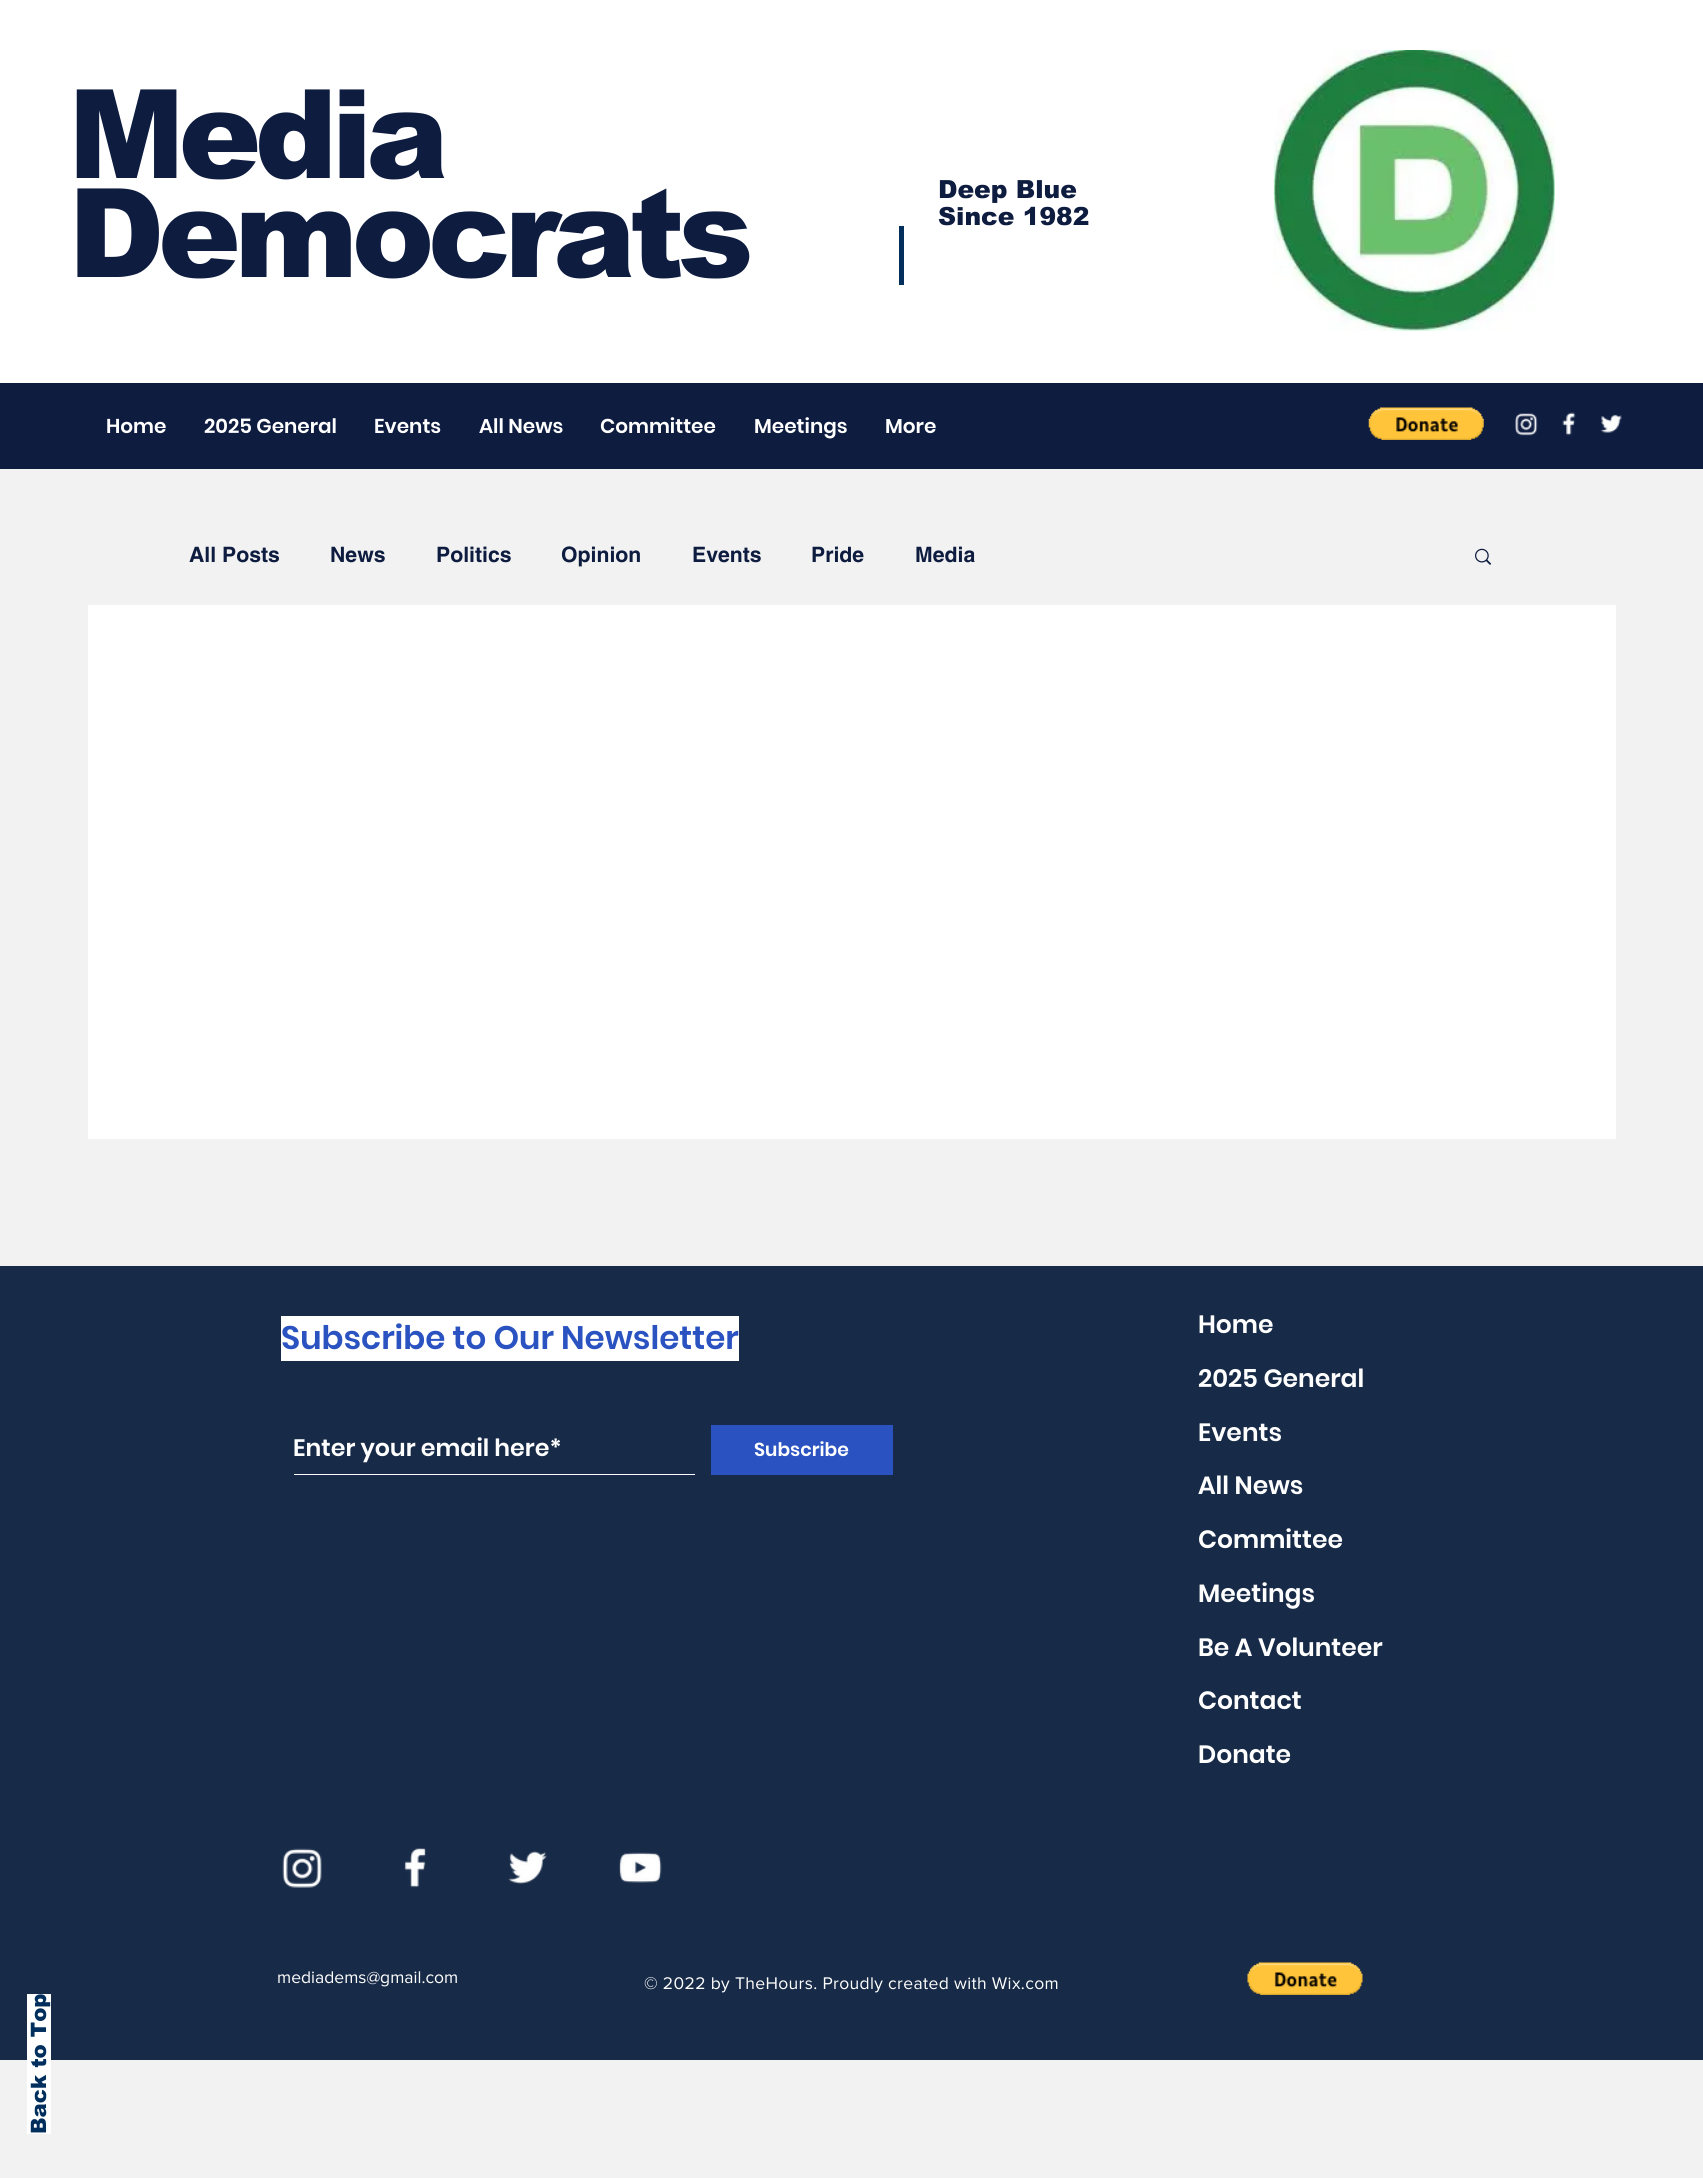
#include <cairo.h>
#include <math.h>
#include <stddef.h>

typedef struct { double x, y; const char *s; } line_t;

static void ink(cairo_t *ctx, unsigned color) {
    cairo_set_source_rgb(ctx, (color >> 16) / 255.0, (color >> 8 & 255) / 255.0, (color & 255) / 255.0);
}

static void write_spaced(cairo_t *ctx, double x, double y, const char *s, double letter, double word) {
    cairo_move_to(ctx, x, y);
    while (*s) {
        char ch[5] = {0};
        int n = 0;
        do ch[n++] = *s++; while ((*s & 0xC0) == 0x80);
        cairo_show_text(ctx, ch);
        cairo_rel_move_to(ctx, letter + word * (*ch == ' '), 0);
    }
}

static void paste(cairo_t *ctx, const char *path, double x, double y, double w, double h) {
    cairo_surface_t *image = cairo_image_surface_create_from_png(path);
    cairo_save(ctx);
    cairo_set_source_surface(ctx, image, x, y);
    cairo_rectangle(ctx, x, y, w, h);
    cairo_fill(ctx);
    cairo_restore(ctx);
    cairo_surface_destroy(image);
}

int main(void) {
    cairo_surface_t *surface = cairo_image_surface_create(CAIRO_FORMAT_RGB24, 1703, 2178);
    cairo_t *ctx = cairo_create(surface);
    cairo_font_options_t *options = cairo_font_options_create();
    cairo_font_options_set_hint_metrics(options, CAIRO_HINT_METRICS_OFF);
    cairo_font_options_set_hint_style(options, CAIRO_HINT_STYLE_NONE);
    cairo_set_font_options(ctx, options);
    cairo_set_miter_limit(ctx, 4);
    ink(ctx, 0xF2F2F2);
    cairo_paint(ctx);
    ink(ctx, 0xFFFFFF);
    cairo_rectangle(ctx, 0, 0, 1703, 383);
    cairo_fill(ctx);
    cairo_select_font_face(ctx, "arial Black", CAIRO_FONT_SLANT_NORMAL, CAIRO_FONT_WEIGHT_NORMAL);
    cairo_set_font_size(ctx, 123.75);
    ink(ctx, 0x0E1C40);
    write_spaced(ctx, 68, 178, "Media", -6.25, 0);
    write_spaced(ctx, 68, 277, "Democrats", -6.25, 0);
    cairo_set_font_size(ctx, 25);
    cairo_move_to(ctx, 938, 198);
    cairo_show_text(ctx, "Deep Blue");
    cairo_move_to(ctx, 938, 225);
    cairo_show_text(ctx, "Since 1982");
    paste(ctx, "media/1.png", 1273, 50, 282, 281);
    ink(ctx, 0x002E5D);
    cairo_rectangle(ctx, 899, 226, 5, 59);
    cairo_fill(ctx);
    ink(ctx, 0x0E1C40);
    cairo_rectangle(ctx, 0, 383, 1703, 86);
    cairo_fill(ctx);
    cairo_select_font_face(ctx, "Poppins SemiBold", CAIRO_FONT_SLANT_NORMAL, CAIRO_FONT_WEIGHT_NORMAL);
    cairo_set_font_size(ctx, 20);
    ink(ctx, 0xFFFFFF);
    {
        static const line_t items[] = {
            {106, 433, "Home"},
            {204, 433, "2025 General"},
            {374, 433, "Events"},
            {479, 433, "All News"},
            {600, 433, "Committee"},
            {754, 433, "Meetings"},
            {885, 433, "More"},
        };
        for (size_t i = 0; i < sizeof items / sizeof *items; i++) {
            cairo_move_to(ctx, items[i].x, items[i].y);
            cairo_show_text(ctx, items[i].s);
        }
    }
    paste(ctx, "media/2.png", 1368, 407, 116, 33);
    paste(ctx, "media/3.png", 1515, 413, 23, 23);
    paste(ctx, "media/4.png", 1562, 412, 14, 24);
    paste(ctx, "media/5.png", 1601, 414, 21, 19);
    cairo_rectangle(ctx, 88, 605, 1528, 534);
    cairo_fill(ctx);
    cairo_select_font_face(ctx, "helvetica", CAIRO_FONT_SLANT_NORMAL, CAIRO_FONT_WEIGHT_BOLD);
    cairo_set_font_size(ctx, 21.25);
    ink(ctx, 0x0E1C40);
    {
        static const line_t items[] = {
            {189, 562, "All Posts"},
            {330, 562, "News"},
            {436, 562, "Politics"},
            {561, 562, "Opinion"},
            {692, 562, "Events"},
            {811, 562, "Pride"},
            {915, 562, "Media"},
        };
        for (size_t i = 0; i < sizeof items / sizeof *items; i++) {
            cairo_move_to(ctx, items[i].x, items[i].y);
            cairo_show_text(ctx, items[i].s);
        }
    }
    paste(ctx, "media/6.png", 1475, 548, 17, 17);
    ink(ctx, 0x172A47);
    cairo_rectangle(ctx, 0, 1266, 1703, 794);
    cairo_fill(ctx);
    ink(ctx, 0xFFFFFF);
    cairo_rectangle(ctx, 281, 1316, 458, 45);
    cairo_fill(ctx);
    cairo_select_font_face(ctx, "Poppins SemiBold", CAIRO_FONT_SLANT_NORMAL, CAIRO_FONT_WEIGHT_NORMAL);
    cairo_set_font_size(ctx, 32.5);
    ink(ctx, 0x2A53C1);
    cairo_move_to(ctx, 281, 1349);
    cairo_show_text(ctx, "Subscribe to Our Newsletter");
    cairo_set_font_size(ctx, 25);
    ink(ctx, 0xFFFFFF);
    {
        static const line_t items[] = {
            {1198, 1333, "Home"},
            {1198, 1387, "2025 General"},
            {1198, 1441, "Events"},
            {1198, 1494, "All News"},
            {1198, 1548, "Committee"},
            {1198, 1602, "Meetings"},
            {1198, 1656, "Be A Volunteer"},
            {1198, 1709, "Contact"},
            {1198, 1763, "Donate"},
        };
        for (size_t i = 0; i < sizeof items / sizeof *items; i++) {
            cairo_move_to(ctx, items[i].x, items[i].y);
            cairo_show_text(ctx, items[i].s);
        }
    }
    cairo_rectangle(ctx, 294, 1474, 401, 1);
    cairo_fill(ctx);
    cairo_set_font_size(ctx, 23.75);
    cairo_move_to(ctx, 293, 1456);
    cairo_show_text(ctx, "Enter your email here*");
    ink(ctx, 0x2A53C1);
    cairo_rectangle(ctx, 711, 1425, 182, 50);
    cairo_fill(ctx);
    cairo_set_font_size(ctx, 18.75);
    ink(ctx, 0xFFFFFF);
    cairo_move_to(ctx, 754, 1456);
    cairo_show_text(ctx, "Subscribe");
    paste(ctx, "media/7.png", 282, 1848, 40, 40);
    paste(ctx, "media/8.png", 404, 1848, 22, 40);
    paste(ctx, "media/9.png", 508, 1851, 39, 33);
    paste(ctx, "media/10.png", 619, 1852, 43, 31);
    cairo_select_font_face(ctx, "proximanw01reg", CAIRO_FONT_SLANT_NORMAL, CAIRO_FONT_WEIGHT_NORMAL);
    cairo_set_font_size(ctx, 17.5);
    cairo_move_to(ctx, 277, 1983);
    cairo_show_text(ctx, "mediadems@gmail.com");
    write_spaced(ctx, 644, 1989, "© 2022 by TheHours. Proudly created with Wix.com", 0.35, 0);
    paste(ctx, "media/11.png", 1247, 1962, 116, 33);
    cairo_rectangle(ctx, 27, 1994, 24, 140);
    cairo_fill(ctx);
    cairo_select_font_face(ctx, "arial Black", CAIRO_FONT_SLANT_NORMAL, CAIRO_FONT_WEIGHT_NORMAL);
    cairo_set_font_size(ctx, 21.25);
    ink(ctx, 0x002E5D);
    cairo_save(ctx);
    cairo_translate(ctx, 46, 2134);
    cairo_rotate(ctx, -90 * M_PI / 180);
    cairo_move_to(ctx, 0, 0);
    cairo_show_text(ctx, "Back to Top");
    cairo_restore(ctx);
    cairo_surface_write_to_png(surface, "image.png");
    cairo_font_options_destroy(options);
    cairo_destroy(ctx);
    cairo_surface_destroy(surface);
    return 0;
}
